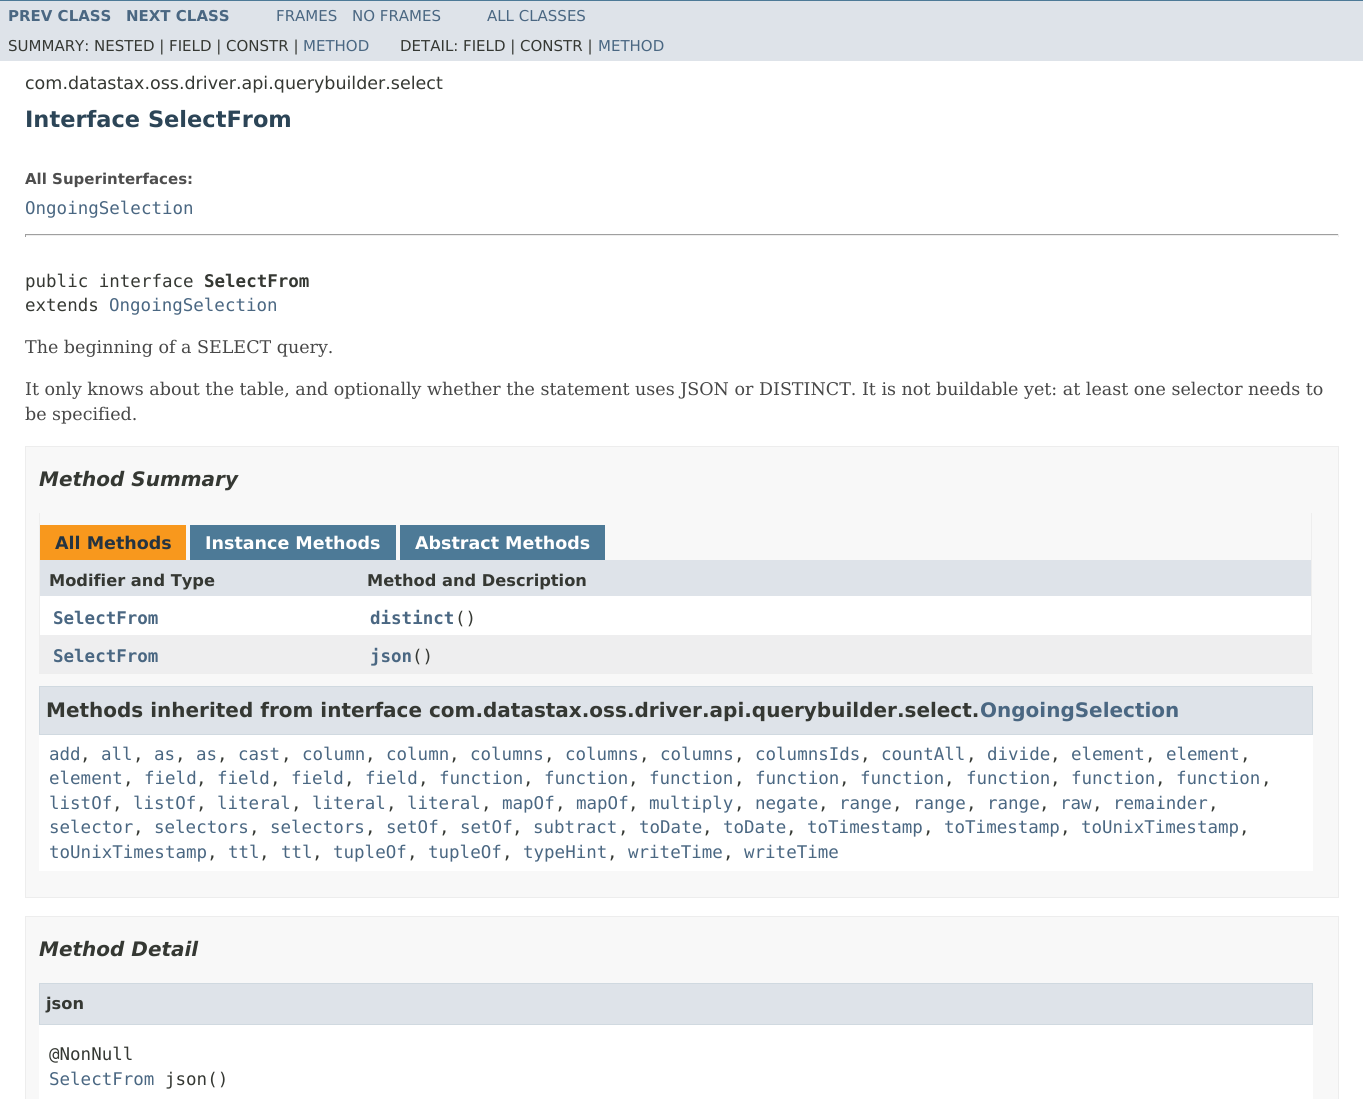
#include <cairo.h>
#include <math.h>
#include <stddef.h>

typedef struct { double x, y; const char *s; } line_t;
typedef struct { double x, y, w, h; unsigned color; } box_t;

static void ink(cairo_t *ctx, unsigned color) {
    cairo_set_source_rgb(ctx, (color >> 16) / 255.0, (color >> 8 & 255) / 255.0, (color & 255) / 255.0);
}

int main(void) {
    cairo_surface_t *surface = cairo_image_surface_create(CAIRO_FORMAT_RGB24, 1363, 1099);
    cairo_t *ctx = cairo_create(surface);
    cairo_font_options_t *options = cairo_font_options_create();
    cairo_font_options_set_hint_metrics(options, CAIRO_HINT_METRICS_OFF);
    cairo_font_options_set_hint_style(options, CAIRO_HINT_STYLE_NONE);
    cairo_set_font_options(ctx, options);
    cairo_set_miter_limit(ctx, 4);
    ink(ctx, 0xFFFFFF);
    cairo_paint(ctx);
    ink(ctx, 0x4D7A97);
    cairo_rectangle(ctx, 0, 0, 1363, 1);
    cairo_fill(ctx);
    ink(ctx, 0xDEE3E9);
    cairo_rectangle(ctx, 0, 1, 1363, 60);
    cairo_fill(ctx);
    cairo_select_font_face(ctx, "DejaVu Sans", CAIRO_FONT_SLANT_NORMAL, CAIRO_FONT_WEIGHT_BOLD);
    cairo_set_font_size(ctx, 15);
    ink(ctx, 0x4A6782);
    cairo_move_to(ctx, 8, 21);
    cairo_show_text(ctx, "PREV CLASS");
    cairo_move_to(ctx, 126, 21);
    cairo_show_text(ctx, "NEXT CLASS");
    cairo_select_font_face(ctx, "DejaVu Sans", CAIRO_FONT_SLANT_NORMAL, CAIRO_FONT_WEIGHT_NORMAL);
    {
        static const line_t items[] = {
            {276, 21, "FRAMES"},
            {352, 21, "NO FRAMES"},
            {487, 21, "ALL CLASSES"},
        };
        for (size_t i = 0; i < sizeof items / sizeof *items; i++) {
            cairo_move_to(ctx, items[i].x, items[i].y);
            cairo_show_text(ctx, items[i].s);
        }
    }
    ink(ctx, 0x353833);
    cairo_move_to(ctx, 8, 51);
    cairo_show_text(ctx, "SUMMARY: NESTED | FIELD | CONSTR |");
    ink(ctx, 0x4A6782);
    cairo_move_to(ctx, 303, 51);
    cairo_show_text(ctx, "METHOD");
    ink(ctx, 0x353833);
    cairo_move_to(ctx, 400, 51);
    cairo_show_text(ctx, "DETAIL: FIELD | CONSTR |");
    ink(ctx, 0x4A6782);
    cairo_move_to(ctx, 598, 51);
    cairo_show_text(ctx, "METHOD");
    cairo_set_font_size(ctx, 17.5);
    ink(ctx, 0x353833);
    cairo_move_to(ctx, 25, 89);
    cairo_show_text(ctx, "com.datastax.oss.driver.api.querybuilder.select");
    cairo_select_font_face(ctx, "DejaVu Sans", CAIRO_FONT_SLANT_NORMAL, CAIRO_FONT_WEIGHT_BOLD);
    cairo_set_font_size(ctx, 22.5);
    ink(ctx, 0x2C4557);
    cairo_move_to(ctx, 25, 127);
    cairo_show_text(ctx, "Interface SelectFrom");
    cairo_set_font_size(ctx, 15);
    ink(ctx, 0x4E4E4E);
    cairo_move_to(ctx, 25, 184);
    cairo_show_text(ctx, "All Superinterfaces:");
    cairo_select_font_face(ctx, "DejaVu Sans Mono", CAIRO_FONT_SLANT_NORMAL, CAIRO_FONT_WEIGHT_NORMAL);
    cairo_set_font_size(ctx, 17.5);
    ink(ctx, 0x4A6782);
    cairo_move_to(ctx, 25, 214);
    cairo_show_text(ctx, "OngoingSelection");
    {
        static const box_t items[] = {
            {25, 234, 1314, 1, 0x9F9F9F},
            {1338, 234, 1, 3, 0xEEEEEE},
            {25, 235, 1314, 1, 0xEEEEEE},
            {25, 234, 1, 3, 0x9F9F9F},
        };
        for (size_t i = 0; i < sizeof items / sizeof *items; i++) {
            ink(ctx, items[i].color);
            cairo_rectangle(ctx, items[i].x, items[i].y, items[i].w, items[i].h);
            cairo_fill(ctx);
        }
    }
    ink(ctx, 0x353833);
    cairo_move_to(ctx, 25, 287);
    cairo_show_text(ctx, "public interface");
    cairo_select_font_face(ctx, "DejaVu Sans Mono", CAIRO_FONT_SLANT_NORMAL, CAIRO_FONT_WEIGHT_BOLD);
    cairo_move_to(ctx, 204, 287);
    cairo_show_text(ctx, "SelectFrom");
    cairo_select_font_face(ctx, "DejaVu Sans Mono", CAIRO_FONT_SLANT_NORMAL, CAIRO_FONT_WEIGHT_NORMAL);
    cairo_move_to(ctx, 25, 311);
    cairo_show_text(ctx, "extends");
    ink(ctx, 0x4A6782);
    cairo_move_to(ctx, 109, 311);
    cairo_show_text(ctx, "OngoingSelection");
    cairo_select_font_face(ctx, "DejaVu Serif", CAIRO_FONT_SLANT_NORMAL, CAIRO_FONT_WEIGHT_NORMAL);
    ink(ctx, 0x474747);
    {
        static const line_t items[] = {
            {25, 353, "The beginning of a SELECT query."},
            {25, 395, "It only knows about the table, and optionally whether the statement uses JSON or DISTINCT. It is not buildable yet: at least one selector needs to"},
            {25, 420, "be specified."},
        };
        for (size_t i = 0; i < sizeof items / sizeof *items; i++) {
            cairo_move_to(ctx, items[i].x, items[i].y);
            cairo_show_text(ctx, items[i].s);
        }
    }
    ink(ctx, 0xF8F8F8);
    cairo_rectangle(ctx, 25.5, 446.5, 1313, 451);
    cairo_fill_preserve(ctx);
    ink(ctx, 0xEDEDED);
    cairo_set_line_width(ctx, 1);
    cairo_stroke(ctx);
    cairo_select_font_face(ctx, "DejaVu Sans", CAIRO_FONT_SLANT_ITALIC, CAIRO_FONT_WEIGHT_BOLD);
    cairo_set_font_size(ctx, 20);
    ink(ctx, 0x353833);
    cairo_move_to(ctx, 39, 486);
    cairo_show_text(ctx, "Method Summary");
    {
        static const box_t items[] = {
            {1311, 513, 1, 161, 0xEEEEEE},
            {39, 673, 1274, 1, 0xEEEEEE},
            {39, 513, 1, 161, 0xEEEEEE},
            {40, 525, 146, 35, 0xF8981D},
        };
        for (size_t i = 0; i < sizeof items / sizeof *items; i++) {
            ink(ctx, items[i].color);
            cairo_rectangle(ctx, items[i].x, items[i].y, items[i].w, items[i].h);
            cairo_fill(ctx);
        }
    }
    cairo_select_font_face(ctx, "DejaVu Sans", CAIRO_FONT_SLANT_NORMAL, CAIRO_FONT_WEIGHT_BOLD);
    cairo_set_font_size(ctx, 17.5);
    ink(ctx, 0x253441);
    cairo_move_to(ctx, 55, 549);
    cairo_show_text(ctx, "All Methods");
    ink(ctx, 0x4D7A97);
    cairo_rectangle(ctx, 190, 525, 206, 35);
    cairo_fill(ctx);
    ink(ctx, 0xFFFFFF);
    cairo_move_to(ctx, 205, 549);
    cairo_show_text(ctx, "Instance Methods");
    ink(ctx, 0x4D7A97);
    cairo_rectangle(ctx, 400, 525, 205, 35);
    cairo_fill(ctx);
    ink(ctx, 0xFFFFFF);
    cairo_move_to(ctx, 415, 549);
    cairo_show_text(ctx, "Abstract Methods");
    ink(ctx, 0xDEE3E9);
    cairo_rectangle(ctx, 40, 560, 1271, 36);
    cairo_fill(ctx);
    cairo_set_font_size(ctx, 16.25);
    ink(ctx, 0x353833);
    cairo_move_to(ctx, 49, 586);
    cairo_show_text(ctx, "Modifier and Type");
    cairo_move_to(ctx, 367, 586);
    cairo_show_text(ctx, "Method and Description");
    ink(ctx, 0xFFFFFF);
    cairo_rectangle(ctx, 40, 596, 1271, 39);
    cairo_fill(ctx);
    cairo_select_font_face(ctx, "DejaVu Sans Mono", CAIRO_FONT_SLANT_NORMAL, CAIRO_FONT_WEIGHT_BOLD);
    cairo_set_font_size(ctx, 17.5);
    ink(ctx, 0x4A6782);
    cairo_move_to(ctx, 53, 624);
    cairo_show_text(ctx, "SelectFrom");
    cairo_move_to(ctx, 370, 624);
    cairo_show_text(ctx, "distinct");
    cairo_select_font_face(ctx, "DejaVu Sans Mono", CAIRO_FONT_SLANT_NORMAL, CAIRO_FONT_WEIGHT_NORMAL);
    ink(ctx, 0x353833);
    cairo_move_to(ctx, 455, 624);
    cairo_show_text(ctx, "()");
    ink(ctx, 0xEEEEEF);
    cairo_rectangle(ctx, 40, 635, 1271, 38);
    cairo_fill(ctx);
    cairo_select_font_face(ctx, "DejaVu Sans Mono", CAIRO_FONT_SLANT_NORMAL, CAIRO_FONT_WEIGHT_BOLD);
    ink(ctx, 0x4A6782);
    cairo_move_to(ctx, 53, 662);
    cairo_show_text(ctx, "SelectFrom");
    cairo_move_to(ctx, 370, 662);
    cairo_show_text(ctx, "json");
    cairo_select_font_face(ctx, "DejaVu Sans Mono", CAIRO_FONT_SLANT_NORMAL, CAIRO_FONT_WEIGHT_NORMAL);
    ink(ctx, 0x353833);
    cairo_move_to(ctx, 412, 662);
    cairo_show_text(ctx, "()");
    ink(ctx, 0xFFFFFF);
    cairo_rectangle(ctx, 39, 735, 1274, 136);
    cairo_fill(ctx);
    ink(ctx, 0xDEE3E9);
    cairo_rectangle(ctx, 39.5, 686.5, 1273, 48);
    cairo_fill_preserve(ctx);
    ink(ctx, 0xD0D9E0);
    cairo_stroke(ctx);
    cairo_select_font_face(ctx, "DejaVu Sans", CAIRO_FONT_SLANT_NORMAL, CAIRO_FONT_WEIGHT_BOLD);
    cairo_set_font_size(ctx, 20);
    ink(ctx, 0x353833);
    cairo_move_to(ctx, 46, 717);
    cairo_show_text(ctx, "Methods inherited from interface com.datastax.oss.driver.api.querybuilder.select.");
    ink(ctx, 0x4A6782);
    cairo_move_to(ctx, 980, 717);
    cairo_show_text(ctx, "OngoingSelection");
    cairo_select_font_face(ctx, "DejaVu Sans Mono", CAIRO_FONT_SLANT_NORMAL, CAIRO_FONT_WEIGHT_NORMAL);
    cairo_set_font_size(ctx, 17.5);
    cairo_move_to(ctx, 49, 760);
    cairo_show_text(ctx, "add");
    ink(ctx, 0x353833);
    cairo_move_to(ctx, 80, 760);
    cairo_show_text(ctx, ",");
    ink(ctx, 0x4A6782);
    cairo_move_to(ctx, 101, 760);
    cairo_show_text(ctx, "all");
    ink(ctx, 0x353833);
    cairo_move_to(ctx, 133, 760);
    cairo_show_text(ctx, ",");
    ink(ctx, 0x4A6782);
    cairo_move_to(ctx, 154, 760);
    cairo_show_text(ctx, "as");
    ink(ctx, 0x353833);
    cairo_move_to(ctx, 175, 760);
    cairo_show_text(ctx, ",");
    ink(ctx, 0x4A6782);
    cairo_move_to(ctx, 196, 760);
    cairo_show_text(ctx, "as");
    ink(ctx, 0x353833);
    cairo_move_to(ctx, 217, 760);
    cairo_show_text(ctx, ",");
    ink(ctx, 0x4A6782);
    cairo_move_to(ctx, 238, 760);
    cairo_show_text(ctx, "cast");
    ink(ctx, 0x353833);
    cairo_move_to(ctx, 281, 760);
    cairo_show_text(ctx, ",");
    ink(ctx, 0x4A6782);
    cairo_move_to(ctx, 302, 760);
    cairo_show_text(ctx, "column");
    ink(ctx, 0x353833);
    cairo_move_to(ctx, 365, 760);
    cairo_show_text(ctx, ",");
    ink(ctx, 0x4A6782);
    cairo_move_to(ctx, 386, 760);
    cairo_show_text(ctx, "column");
    ink(ctx, 0x353833);
    cairo_move_to(ctx, 449, 760);
    cairo_show_text(ctx, ",");
    ink(ctx, 0x4A6782);
    cairo_move_to(ctx, 470, 760);
    cairo_show_text(ctx, "columns");
    ink(ctx, 0x353833);
    cairo_move_to(ctx, 544, 760);
    cairo_show_text(ctx, ",");
    ink(ctx, 0x4A6782);
    cairo_move_to(ctx, 565, 760);
    cairo_show_text(ctx, "columns");
    ink(ctx, 0x353833);
    cairo_move_to(ctx, 639, 760);
    cairo_show_text(ctx, ",");
    ink(ctx, 0x4A6782);
    cairo_move_to(ctx, 660, 760);
    cairo_show_text(ctx, "columns");
    ink(ctx, 0x353833);
    cairo_move_to(ctx, 734, 760);
    cairo_show_text(ctx, ",");
    ink(ctx, 0x4A6782);
    cairo_move_to(ctx, 755, 760);
    cairo_show_text(ctx, "columnsIds");
    ink(ctx, 0x353833);
    cairo_move_to(ctx, 860, 760);
    cairo_show_text(ctx, ",");
    ink(ctx, 0x4A6782);
    cairo_move_to(ctx, 881, 760);
    cairo_show_text(ctx, "countAll");
    ink(ctx, 0x353833);
    cairo_move_to(ctx, 966, 760);
    cairo_show_text(ctx, ",");
    ink(ctx, 0x4A6782);
    cairo_move_to(ctx, 987, 760);
    cairo_show_text(ctx, "divide");
    ink(ctx, 0x353833);
    cairo_move_to(ctx, 1050, 760);
    cairo_show_text(ctx, ",");
    ink(ctx, 0x4A6782);
    cairo_move_to(ctx, 1071, 760);
    cairo_show_text(ctx, "element");
    ink(ctx, 0x353833);
    cairo_move_to(ctx, 1145, 760);
    cairo_show_text(ctx, ",");
    ink(ctx, 0x4A6782);
    cairo_move_to(ctx, 1166, 760);
    cairo_show_text(ctx, "element");
    ink(ctx, 0x353833);
    cairo_move_to(ctx, 1240, 760);
    cairo_show_text(ctx, ",");
    ink(ctx, 0x4A6782);
    cairo_move_to(ctx, 49, 784);
    cairo_show_text(ctx, "element");
    ink(ctx, 0x353833);
    cairo_move_to(ctx, 123, 784);
    cairo_show_text(ctx, ",");
    ink(ctx, 0x4A6782);
    cairo_move_to(ctx, 144, 784);
    cairo_show_text(ctx, "field");
    ink(ctx, 0x353833);
    cairo_move_to(ctx, 196, 784);
    cairo_show_text(ctx, ",");
    ink(ctx, 0x4A6782);
    cairo_move_to(ctx, 217, 784);
    cairo_show_text(ctx, "field");
    ink(ctx, 0x353833);
    cairo_move_to(ctx, 270, 784);
    cairo_show_text(ctx, ",");
    ink(ctx, 0x4A6782);
    cairo_move_to(ctx, 291, 784);
    cairo_show_text(ctx, "field");
    ink(ctx, 0x353833);
    cairo_move_to(ctx, 344, 784);
    cairo_show_text(ctx, ",");
    ink(ctx, 0x4A6782);
    cairo_move_to(ctx, 365, 784);
    cairo_show_text(ctx, "field");
    ink(ctx, 0x353833);
    cairo_move_to(ctx, 418, 784);
    cairo_show_text(ctx, ",");
    ink(ctx, 0x4A6782);
    cairo_move_to(ctx, 439, 784);
    cairo_show_text(ctx, "function");
    ink(ctx, 0x353833);
    cairo_move_to(ctx, 523, 784);
    cairo_show_text(ctx, ",");
    ink(ctx, 0x4A6782);
    cairo_move_to(ctx, 544, 784);
    cairo_show_text(ctx, "function");
    ink(ctx, 0x353833);
    cairo_move_to(ctx, 628, 784);
    cairo_show_text(ctx, ",");
    ink(ctx, 0x4A6782);
    cairo_move_to(ctx, 649, 784);
    cairo_show_text(ctx, "function");
    ink(ctx, 0x353833);
    cairo_move_to(ctx, 734, 784);
    cairo_show_text(ctx, ",");
    ink(ctx, 0x4A6782);
    cairo_move_to(ctx, 755, 784);
    cairo_show_text(ctx, "function");
    ink(ctx, 0x353833);
    cairo_move_to(ctx, 839, 784);
    cairo_show_text(ctx, ",");
    ink(ctx, 0x4A6782);
    cairo_move_to(ctx, 860, 784);
    cairo_show_text(ctx, "function");
    ink(ctx, 0x353833);
    cairo_move_to(ctx, 944, 784);
    cairo_show_text(ctx, ",");
    ink(ctx, 0x4A6782);
    cairo_move_to(ctx, 966, 784);
    cairo_show_text(ctx, "function");
    ink(ctx, 0x353833);
    cairo_move_to(ctx, 1050, 784);
    cairo_show_text(ctx, ",");
    ink(ctx, 0x4A6782);
    cairo_move_to(ctx, 1071, 784);
    cairo_show_text(ctx, "function");
    ink(ctx, 0x353833);
    cairo_move_to(ctx, 1155, 784);
    cairo_show_text(ctx, ",");
    ink(ctx, 0x4A6782);
    cairo_move_to(ctx, 1176, 784);
    cairo_show_text(ctx, "function");
    ink(ctx, 0x353833);
    cairo_move_to(ctx, 1261, 784);
    cairo_show_text(ctx, ",");
    ink(ctx, 0x4A6782);
    cairo_move_to(ctx, 49, 809);
    cairo_show_text(ctx, "listOf");
    ink(ctx, 0x353833);
    cairo_move_to(ctx, 112, 809);
    cairo_show_text(ctx, ",");
    ink(ctx, 0x4A6782);
    cairo_move_to(ctx, 133, 809);
    cairo_show_text(ctx, "listOf");
    ink(ctx, 0x353833);
    cairo_move_to(ctx, 196, 809);
    cairo_show_text(ctx, ",");
    ink(ctx, 0x4A6782);
    cairo_move_to(ctx, 217, 809);
    cairo_show_text(ctx, "literal");
    ink(ctx, 0x353833);
    cairo_move_to(ctx, 291, 809);
    cairo_show_text(ctx, ",");
    ink(ctx, 0x4A6782);
    cairo_move_to(ctx, 312, 809);
    cairo_show_text(ctx, "literal");
    ink(ctx, 0x353833);
    cairo_move_to(ctx, 386, 809);
    cairo_show_text(ctx, ",");
    ink(ctx, 0x4A6782);
    cairo_move_to(ctx, 407, 809);
    cairo_show_text(ctx, "literal");
    ink(ctx, 0x353833);
    cairo_move_to(ctx, 481, 809);
    cairo_show_text(ctx, ",");
    ink(ctx, 0x4A6782);
    cairo_move_to(ctx, 502, 809);
    cairo_show_text(ctx, "mapOf");
    ink(ctx, 0x353833);
    cairo_move_to(ctx, 555, 809);
    cairo_show_text(ctx, ",");
    ink(ctx, 0x4A6782);
    cairo_move_to(ctx, 576, 809);
    cairo_show_text(ctx, "mapOf");
    ink(ctx, 0x353833);
    cairo_move_to(ctx, 628, 809);
    cairo_show_text(ctx, ",");
    ink(ctx, 0x4A6782);
    cairo_move_to(ctx, 649, 809);
    cairo_show_text(ctx, "multiply");
    ink(ctx, 0x353833);
    cairo_move_to(ctx, 734, 809);
    cairo_show_text(ctx, ",");
    ink(ctx, 0x4A6782);
    cairo_move_to(ctx, 755, 809);
    cairo_show_text(ctx, "negate");
    ink(ctx, 0x353833);
    cairo_move_to(ctx, 818, 809);
    cairo_show_text(ctx, ",");
    ink(ctx, 0x4A6782);
    cairo_move_to(ctx, 839, 809);
    cairo_show_text(ctx, "range");
    ink(ctx, 0x353833);
    cairo_move_to(ctx, 892, 809);
    cairo_show_text(ctx, ",");
    ink(ctx, 0x4A6782);
    cairo_move_to(ctx, 913, 809);
    cairo_show_text(ctx, "range");
    ink(ctx, 0x353833);
    cairo_move_to(ctx, 966, 809);
    cairo_show_text(ctx, ",");
    ink(ctx, 0x4A6782);
    cairo_move_to(ctx, 987, 809);
    cairo_show_text(ctx, "range");
    ink(ctx, 0x353833);
    cairo_move_to(ctx, 1039, 809);
    cairo_show_text(ctx, ",");
    ink(ctx, 0x4A6782);
    cairo_move_to(ctx, 1060, 809);
    cairo_show_text(ctx, "raw");
    ink(ctx, 0x353833);
    cairo_move_to(ctx, 1092, 809);
    cairo_show_text(ctx, ",");
    ink(ctx, 0x4A6782);
    cairo_move_to(ctx, 1113, 809);
    cairo_show_text(ctx, "remainder");
    ink(ctx, 0x353833);
    cairo_move_to(ctx, 1208, 809);
    cairo_show_text(ctx, ",");
    ink(ctx, 0x4A6782);
    cairo_move_to(ctx, 49, 833);
    cairo_show_text(ctx, "selector");
    ink(ctx, 0x353833);
    cairo_move_to(ctx, 133, 833);
    cairo_show_text(ctx, ",");
    ink(ctx, 0x4A6782);
    cairo_move_to(ctx, 154, 833);
    cairo_show_text(ctx, "selectors");
    ink(ctx, 0x353833);
    cairo_move_to(ctx, 249, 833);
    cairo_show_text(ctx, ",");
    ink(ctx, 0x4A6782);
    cairo_move_to(ctx, 270, 833);
    cairo_show_text(ctx, "selectors");
    ink(ctx, 0x353833);
    cairo_move_to(ctx, 365, 833);
    cairo_show_text(ctx, ",");
    ink(ctx, 0x4A6782);
    cairo_move_to(ctx, 386, 833);
    cairo_show_text(ctx, "setOf");
    ink(ctx, 0x353833);
    cairo_move_to(ctx, 439, 833);
    cairo_show_text(ctx, ",");
    ink(ctx, 0x4A6782);
    cairo_move_to(ctx, 460, 833);
    cairo_show_text(ctx, "setOf");
    ink(ctx, 0x353833);
    cairo_move_to(ctx, 512, 833);
    cairo_show_text(ctx, ",");
    ink(ctx, 0x4A6782);
    cairo_move_to(ctx, 533, 833);
    cairo_show_text(ctx, "subtract");
    ink(ctx, 0x353833);
    cairo_move_to(ctx, 618, 833);
    cairo_show_text(ctx, ",");
    ink(ctx, 0x4A6782);
    cairo_move_to(ctx, 639, 833);
    cairo_show_text(ctx, "toDate");
    ink(ctx, 0x353833);
    cairo_move_to(ctx, 702, 833);
    cairo_show_text(ctx, ",");
    ink(ctx, 0x4A6782);
    cairo_move_to(ctx, 723, 833);
    cairo_show_text(ctx, "toDate");
    ink(ctx, 0x353833);
    cairo_move_to(ctx, 786, 833);
    cairo_show_text(ctx, ",");
    ink(ctx, 0x4A6782);
    cairo_move_to(ctx, 807, 833);
    cairo_show_text(ctx, "toTimestamp");
    ink(ctx, 0x353833);
    cairo_move_to(ctx, 923, 833);
    cairo_show_text(ctx, ",");
    ink(ctx, 0x4A6782);
    cairo_move_to(ctx, 944, 833);
    cairo_show_text(ctx, "toTimestamp");
    ink(ctx, 0x353833);
    cairo_move_to(ctx, 1060, 833);
    cairo_show_text(ctx, ",");
    ink(ctx, 0x4A6782);
    cairo_move_to(ctx, 1081, 833);
    cairo_show_text(ctx, "toUnixTimestamp");
    ink(ctx, 0x353833);
    cairo_move_to(ctx, 1239, 833);
    cairo_show_text(ctx, ",");
    ink(ctx, 0x4A6782);
    cairo_move_to(ctx, 49, 858);
    cairo_show_text(ctx, "toUnixTimestamp");
    ink(ctx, 0x353833);
    cairo_move_to(ctx, 207, 858);
    cairo_show_text(ctx, ",");
    ink(ctx, 0x4A6782);
    cairo_move_to(ctx, 228, 858);
    cairo_show_text(ctx, "ttl");
    ink(ctx, 0x353833);
    cairo_move_to(ctx, 259, 858);
    cairo_show_text(ctx, ",");
    ink(ctx, 0x4A6782);
    cairo_move_to(ctx, 281, 858);
    cairo_show_text(ctx, "ttl");
    ink(ctx, 0x353833);
    cairo_move_to(ctx, 312, 858);
    cairo_show_text(ctx, ",");
    ink(ctx, 0x4A6782);
    cairo_move_to(ctx, 333, 858);
    cairo_show_text(ctx, "tupleOf");
    ink(ctx, 0x353833);
    cairo_move_to(ctx, 407, 858);
    cairo_show_text(ctx, ",");
    ink(ctx, 0x4A6782);
    cairo_move_to(ctx, 428, 858);
    cairo_show_text(ctx, "tupleOf");
    ink(ctx, 0x353833);
    cairo_move_to(ctx, 502, 858);
    cairo_show_text(ctx, ",");
    ink(ctx, 0x4A6782);
    cairo_move_to(ctx, 523, 858);
    cairo_show_text(ctx, "typeHint");
    ink(ctx, 0x353833);
    cairo_move_to(ctx, 607, 858);
    cairo_show_text(ctx, ",");
    ink(ctx, 0x4A6782);
    cairo_move_to(ctx, 628, 858);
    cairo_show_text(ctx, "writeTime");
    ink(ctx, 0x353833);
    cairo_move_to(ctx, 723, 858);
    cairo_show_text(ctx, ",");
    ink(ctx, 0x4A6782);
    cairo_move_to(ctx, 744, 858);
    cairo_show_text(ctx, "writeTime");
    ink(ctx, 0xF8F8F8);
    cairo_rectangle(ctx, 25.5, 916.5, 1313, 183);
    cairo_fill_preserve(ctx);
    ink(ctx, 0xEDEDED);
    cairo_stroke(ctx);
    cairo_select_font_face(ctx, "DejaVu Sans", CAIRO_FONT_SLANT_ITALIC, CAIRO_FONT_WEIGHT_BOLD);
    cairo_set_font_size(ctx, 20);
    ink(ctx, 0x353833);
    cairo_move_to(ctx, 39, 956);
    cairo_show_text(ctx, "Method Detail");
    ink(ctx, 0xFFFFFF);
    cairo_rectangle(ctx, 39, 1025, 1274, 74);
    cairo_fill(ctx);
    ink(ctx, 0xDEE3E9);
    cairo_rectangle(ctx, 39.5, 983.5, 1273, 41);
    cairo_fill_preserve(ctx);
    ink(ctx, 0xD0D9E0);
    cairo_stroke(ctx);
    cairo_select_font_face(ctx, "DejaVu Sans", CAIRO_FONT_SLANT_NORMAL, CAIRO_FONT_WEIGHT_BOLD);
    cairo_set_font_size(ctx, 16.25);
    ink(ctx, 0x353833);
    cairo_move_to(ctx, 46, 1009);
    cairo_show_text(ctx, "json");
    cairo_select_font_face(ctx, "DejaVu Sans Mono", CAIRO_FONT_SLANT_NORMAL, CAIRO_FONT_WEIGHT_NORMAL);
    cairo_set_font_size(ctx, 17.5);
    cairo_move_to(ctx, 49, 1060);
    cairo_show_text(ctx, "@NonNull");
    ink(ctx, 0x4A6782);
    cairo_move_to(ctx, 49, 1085);
    cairo_show_text(ctx, "SelectFrom");
    ink(ctx, 0x353833);
    cairo_move_to(ctx, 165, 1085);
    cairo_show_text(ctx, "json()");
    cairo_surface_write_to_png(surface, "image.png");
    cairo_font_options_destroy(options);
    cairo_destroy(ctx);
    cairo_surface_destroy(surface);
    return 0;
}
